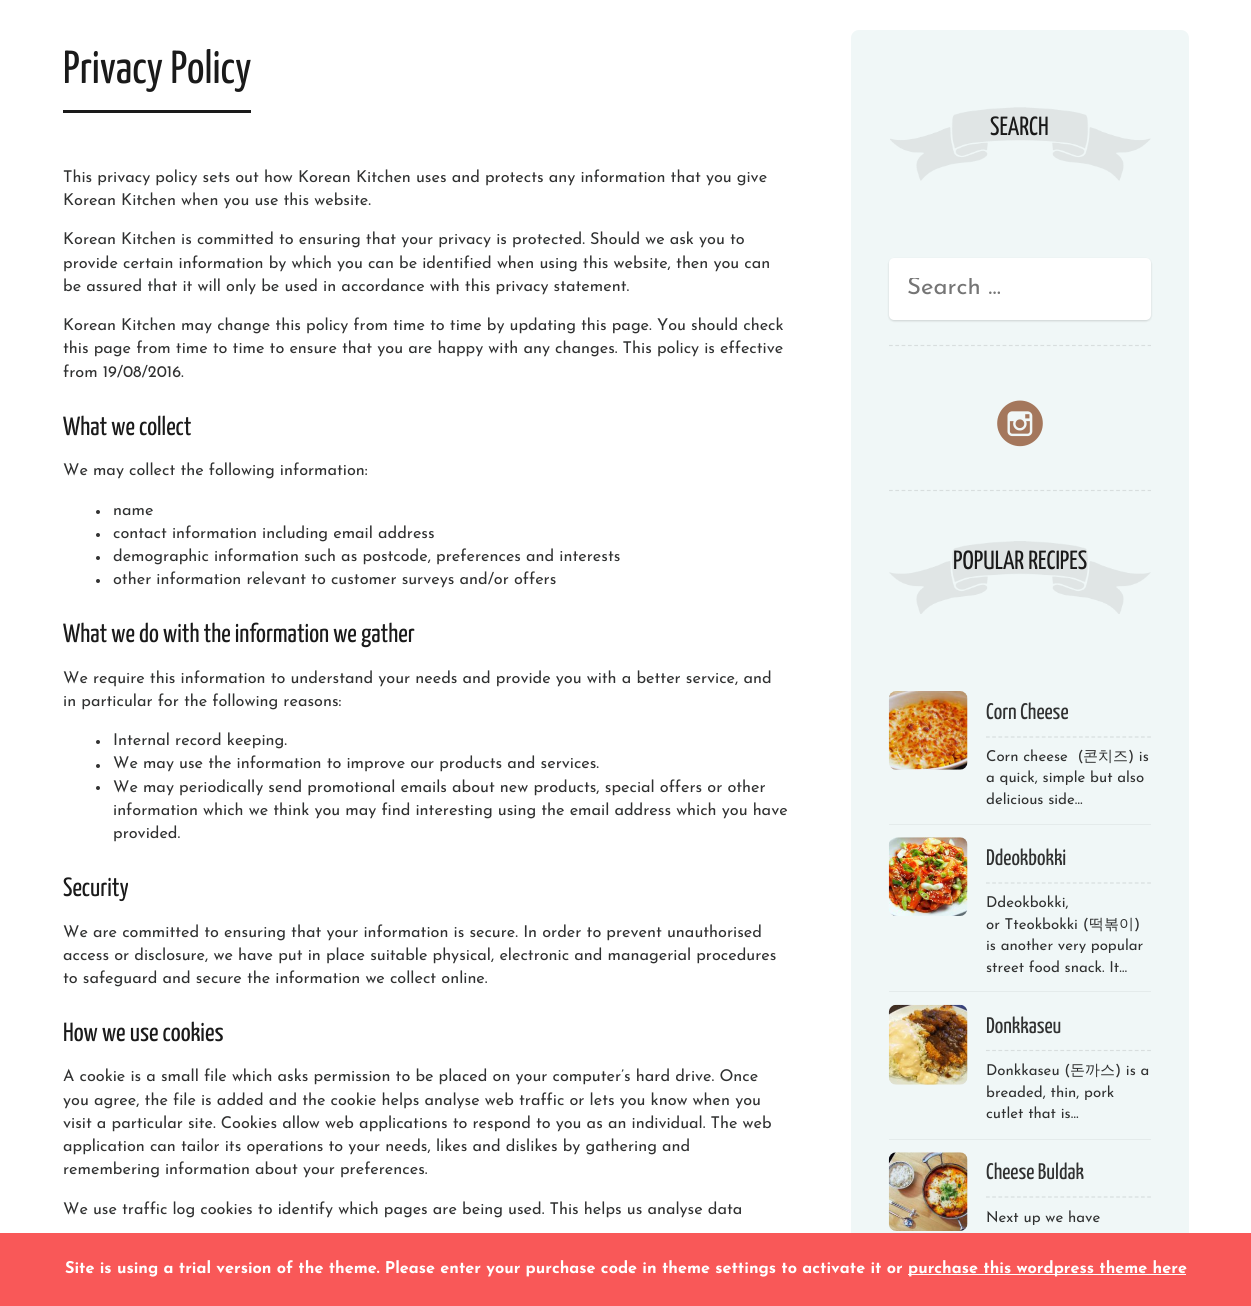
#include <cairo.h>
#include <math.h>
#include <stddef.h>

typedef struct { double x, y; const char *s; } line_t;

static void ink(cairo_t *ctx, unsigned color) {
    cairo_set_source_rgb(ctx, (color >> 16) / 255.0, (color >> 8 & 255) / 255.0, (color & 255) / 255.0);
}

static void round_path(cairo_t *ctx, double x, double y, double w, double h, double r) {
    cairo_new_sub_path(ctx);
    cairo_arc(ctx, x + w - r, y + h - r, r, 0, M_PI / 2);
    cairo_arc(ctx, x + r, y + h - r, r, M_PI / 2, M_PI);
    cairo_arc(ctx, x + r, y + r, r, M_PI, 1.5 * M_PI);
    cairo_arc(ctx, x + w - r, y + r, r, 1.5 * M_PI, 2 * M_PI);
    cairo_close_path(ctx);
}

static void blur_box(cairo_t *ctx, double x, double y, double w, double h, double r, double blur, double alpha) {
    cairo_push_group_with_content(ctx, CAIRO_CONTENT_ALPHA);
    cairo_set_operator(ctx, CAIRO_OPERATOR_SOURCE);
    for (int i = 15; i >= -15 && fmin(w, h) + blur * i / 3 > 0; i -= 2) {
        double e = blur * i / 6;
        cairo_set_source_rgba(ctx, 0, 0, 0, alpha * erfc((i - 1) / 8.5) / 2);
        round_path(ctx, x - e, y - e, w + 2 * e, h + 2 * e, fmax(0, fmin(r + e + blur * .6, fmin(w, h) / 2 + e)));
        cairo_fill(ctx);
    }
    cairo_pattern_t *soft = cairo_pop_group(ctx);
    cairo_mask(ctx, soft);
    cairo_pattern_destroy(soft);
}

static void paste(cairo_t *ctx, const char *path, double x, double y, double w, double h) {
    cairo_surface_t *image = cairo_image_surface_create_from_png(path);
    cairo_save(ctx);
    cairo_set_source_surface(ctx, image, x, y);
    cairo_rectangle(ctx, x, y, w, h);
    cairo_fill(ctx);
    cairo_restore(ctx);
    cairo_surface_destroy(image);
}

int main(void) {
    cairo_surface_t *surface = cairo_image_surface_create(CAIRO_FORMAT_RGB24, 1251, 1306);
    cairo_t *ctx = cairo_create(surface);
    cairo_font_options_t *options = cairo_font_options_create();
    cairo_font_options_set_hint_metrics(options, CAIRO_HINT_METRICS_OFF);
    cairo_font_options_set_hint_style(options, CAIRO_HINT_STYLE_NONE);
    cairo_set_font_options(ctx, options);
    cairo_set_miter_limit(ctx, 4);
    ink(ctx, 0xFFFFFF);
    cairo_paint(ctx);
    ink(ctx, 0x1A1A1A);
    cairo_rectangle(ctx, 63, 110, 188, 3);
    cairo_fill(ctx);
    cairo_select_font_face(ctx, "Yanone Kaffeesatz ExtraLight", CAIRO_FONT_SLANT_NORMAL, CAIRO_FONT_WEIGHT_NORMAL);
    cairo_set_font_size(ctx, 46.25);
    cairo_move_to(ctx, 63, 83);
    cairo_show_text(ctx, "Privacy Policy");
    cairo_select_font_face(ctx, "Josefin Sans", CAIRO_FONT_SLANT_NORMAL, CAIRO_FONT_WEIGHT_NORMAL);
    cairo_set_font_size(ctx, 16.25);
    ink(ctx, 0x303131);
    {
        static const line_t items[] = {
            {63, 182, "This privacy policy sets out how Korean Kitchen uses and protects any information that you give"},
            {63, 205, "Korean Kitchen when you use this website."},
            {63, 244, "Korean Kitchen is committed to ensuring that your privacy is protected. Should we ask you to"},
            {63, 268, "provide certain information by which you can be identified when using this website, then you can"},
            {63, 291, "be assured that it will only be used in accordance with this privacy statement."},
            {63, 330, "Korean Kitchen may change this policy from time to time by updating this page. You should check"},
            {63, 353, "this page from time to time to ensure that you are happy with any changes. This policy is effective"},
            {63, 377, "from 19/08/2016."},
        };
        for (size_t i = 0; i < sizeof items / sizeof *items; i++) {
            cairo_move_to(ctx, items[i].x, items[i].y);
            cairo_show_text(ctx, items[i].s);
        }
    }
    cairo_select_font_face(ctx, "Yanone Kaffeesatz ExtraLight", CAIRO_FONT_SLANT_NORMAL, CAIRO_FONT_WEIGHT_NORMAL);
    cairo_set_font_size(ctx, 26.25);
    ink(ctx, 0x1A1A1A);
    cairo_move_to(ctx, 63, 435);
    cairo_show_text(ctx, "What we collect");
    cairo_select_font_face(ctx, "Josefin Sans", CAIRO_FONT_SLANT_NORMAL, CAIRO_FONT_WEIGHT_NORMAL);
    cairo_set_font_size(ctx, 16.25);
    ink(ctx, 0x303131);
    cairo_move_to(ctx, 63, 475);
    cairo_show_text(ctx, "We may collect the following information:");
    ink(ctx, 0x333333);
    cairo_new_path(ctx);
    cairo_arc(ctx, 98, 512, 2, 0, 2 * M_PI);
    cairo_fill(ctx);
    ink(ctx, 0x303131);
    cairo_move_to(ctx, 113, 515);
    cairo_show_text(ctx, "name");
    ink(ctx, 0x333333);
    cairo_new_path(ctx);
    cairo_arc(ctx, 98, 535, 2, 0, 2 * M_PI);
    cairo_fill(ctx);
    ink(ctx, 0x303131);
    cairo_move_to(ctx, 113, 538);
    cairo_show_text(ctx, "contact information including email address");
    ink(ctx, 0x333333);
    cairo_new_path(ctx);
    cairo_arc(ctx, 98, 558, 2, 0, 2 * M_PI);
    cairo_fill(ctx);
    ink(ctx, 0x303131);
    cairo_move_to(ctx, 113, 561);
    cairo_show_text(ctx, "demographic information such as postcode, preferences and interests");
    ink(ctx, 0x333333);
    cairo_new_path(ctx);
    cairo_arc(ctx, 98, 581, 2, 0, 2 * M_PI);
    cairo_fill(ctx);
    ink(ctx, 0x303131);
    cairo_move_to(ctx, 113, 584);
    cairo_show_text(ctx, "other information relevant to customer surveys and/or offers");
    cairo_select_font_face(ctx, "Yanone Kaffeesatz ExtraLight", CAIRO_FONT_SLANT_NORMAL, CAIRO_FONT_WEIGHT_NORMAL);
    cairo_set_font_size(ctx, 26.25);
    ink(ctx, 0x1A1A1A);
    cairo_move_to(ctx, 63, 642);
    cairo_show_text(ctx, "What we do with the information we gather");
    cairo_select_font_face(ctx, "Josefin Sans", CAIRO_FONT_SLANT_NORMAL, CAIRO_FONT_WEIGHT_NORMAL);
    cairo_set_font_size(ctx, 16.25);
    ink(ctx, 0x303131);
    cairo_move_to(ctx, 63, 683);
    cairo_show_text(ctx, "We require this information to understand your needs and provide you with a better service, and");
    cairo_move_to(ctx, 63, 706);
    cairo_show_text(ctx, "in particular for the following reasons:");
    ink(ctx, 0x333333);
    cairo_new_path(ctx);
    cairo_arc(ctx, 98, 742, 2, 0, 2 * M_PI);
    cairo_fill(ctx);
    ink(ctx, 0x303131);
    cairo_move_to(ctx, 113, 745);
    cairo_show_text(ctx, "Internal record keeping.");
    ink(ctx, 0x333333);
    cairo_new_path(ctx);
    cairo_arc(ctx, 98, 766, 2, 0, 2 * M_PI);
    cairo_fill(ctx);
    ink(ctx, 0x303131);
    cairo_move_to(ctx, 113, 768);
    cairo_show_text(ctx, "We may use the information to improve our products and services.");
    ink(ctx, 0x333333);
    cairo_new_path(ctx);
    cairo_arc(ctx, 98, 788, 2, 0, 2 * M_PI);
    cairo_fill(ctx);
    ink(ctx, 0x303131);
    {
        static const line_t items[] = {
            {113, 792, "We may periodically send promotional emails about new products, special offers or other"},
            {113, 815, "information which we think you may find interesting using the email address which you have"},
            {113, 838, "provided."},
        };
        for (size_t i = 0; i < sizeof items / sizeof *items; i++) {
            cairo_move_to(ctx, items[i].x, items[i].y);
            cairo_show_text(ctx, items[i].s);
        }
    }
    cairo_select_font_face(ctx, "Yanone Kaffeesatz ExtraLight", CAIRO_FONT_SLANT_NORMAL, CAIRO_FONT_WEIGHT_NORMAL);
    cairo_set_font_size(ctx, 26.25);
    ink(ctx, 0x1A1A1A);
    cairo_move_to(ctx, 63, 896);
    cairo_show_text(ctx, "Security");
    cairo_select_font_face(ctx, "Josefin Sans", CAIRO_FONT_SLANT_NORMAL, CAIRO_FONT_WEIGHT_NORMAL);
    cairo_set_font_size(ctx, 16.25);
    ink(ctx, 0x303131);
    {
        static const line_t items[] = {
            {63, 937, "We are committed to ensuring that your information is secure. In order to prevent unauthorised"},
            {63, 960, "access or disclosure, we have put in place suitable physical, electronic and managerial procedures"},
            {63, 983, "to safeguard and secure the information we collect online."},
        };
        for (size_t i = 0; i < sizeof items / sizeof *items; i++) {
            cairo_move_to(ctx, items[i].x, items[i].y);
            cairo_show_text(ctx, items[i].s);
        }
    }
    cairo_select_font_face(ctx, "Yanone Kaffeesatz ExtraLight", CAIRO_FONT_SLANT_NORMAL, CAIRO_FONT_WEIGHT_NORMAL);
    cairo_set_font_size(ctx, 26.25);
    ink(ctx, 0x1A1A1A);
    cairo_move_to(ctx, 63, 1041);
    cairo_show_text(ctx, "How we use cookies");
    cairo_select_font_face(ctx, "Josefin Sans", CAIRO_FONT_SLANT_NORMAL, CAIRO_FONT_WEIGHT_NORMAL);
    cairo_set_font_size(ctx, 16.25);
    ink(ctx, 0x303131);
    {
        static const line_t items[] = {
            {63, 1081, "A cookie is a small file which asks permission to be placed on your computer’s hard drive. Once"},
            {63, 1105, "you agree, the file is added and the cookie helps analyse web traffic or lets you know when you"},
            {63, 1128, "visit a particular site. Cookies allow web applications to respond to you as an individual. The web"},
            {63, 1151, "application can tailor its operations to your needs, likes and dislikes by gathering and"},
            {63, 1174, "remembering information about your preferences."},
            {63, 1214, "We use traffic log cookies to identify which pages are being used. This helps us analyse data"},
        };
        for (size_t i = 0; i < sizeof items / sizeof *items; i++) {
            cairo_move_to(ctx, items[i].x, items[i].y);
            cairo_show_text(ctx, items[i].s);
        }
    }
    ink(ctx, 0xF0F7F7);
    round_path(ctx, 851, 30, 338, 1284, 8);
    cairo_fill(ctx);
    cairo_new_path(ctx);
    cairo_move_to(ctx, 889, 345.5);
    cairo_line_to(ctx, 1151, 345.5);
    ink(ctx, 0xD8DEDE);
    cairo_set_line_width(ctx, 1.2);
    cairo_set_dash(ctx, (double[]){3.75, 2.56}, 2, 0);
    cairo_stroke(ctx);
    paste(ctx, "media/1.png", 890, 107, 261, 74);
    cairo_select_font_face(ctx, "Yanone Kaffeesatz ExtraLight", CAIRO_FONT_SLANT_NORMAL, CAIRO_FONT_WEIGHT_NORMAL);
    cairo_set_font_size(ctx, 26.25);
    ink(ctx, 0x1A1A1A);
    cairo_move_to(ctx, 990, 135);
    cairo_show_text(ctx, "SEARCH");
    ink(ctx, 0x000000);
    blur_box(ctx, 889, 259, 262, 62, 5, 1, 0.15);
    ink(ctx, 0xFFFFFF);
    round_path(ctx, 889, 258, 262, 62, 5);
    cairo_fill(ctx);
    cairo_save(ctx);
    cairo_rectangle(ctx, 908, 278, 220, 23);
    cairo_clip(ctx);
    cairo_select_font_face(ctx, "Josefin Sans", CAIRO_FONT_SLANT_NORMAL, CAIRO_FONT_WEIGHT_NORMAL);
    cairo_set_font_size(ctx, 24);
    ink(ctx, 0x757575);
    cairo_move_to(ctx, 907, 294);
    cairo_show_text(ctx, "Search …");
    cairo_restore(ctx);
    cairo_new_path(ctx);
    cairo_move_to(ctx, 889, 490.5);
    cairo_line_to(ctx, 1151, 490.5);
    ink(ctx, 0xD8DEDE);
    cairo_stroke(ctx);
    paste(ctx, "media/2.png", 997, 400, 46, 47);
    paste(ctx, "media/3.png", 889, 541, 262, 73);
    ink(ctx, 0x1A1A1A);
    cairo_move_to(ctx, 953, 569);
    cairo_show_text(ctx, "POPULAR RECIPES");
    ink(ctx, 0xE4EBEB);
    cairo_rectangle(ctx, 889, 824, 262, 1);
    cairo_fill(ctx);
    paste(ctx, "media/4.png", 888, 691, 80, 79);
    cairo_set_font_size(ctx, 22.5);
    ink(ctx, 0x303131);
    cairo_move_to(ctx, 986, 719);
    cairo_show_text(ctx, "Corn Cheese");
    cairo_new_path(ctx);
    cairo_move_to(ctx, 986, 737);
    cairo_line_to(ctx, 1151, 737);
    ink(ctx, 0xD8DEDE);
    cairo_set_dash(ctx, (double[]){3.75, 2.45}, 2, 0);
    cairo_stroke(ctx);
    cairo_select_font_face(ctx, "Josefin Sans", CAIRO_FONT_SLANT_NORMAL, CAIRO_FONT_WEIGHT_NORMAL);
    cairo_set_font_size(ctx, 15);
    ink(ctx, 0x303131);
    cairo_move_to(ctx, 986, 761);
    cairo_show_text(ctx, "Corn cheese  (");
    cairo_select_font_face(ctx, "WenQuanYi Zen Hei Medium", CAIRO_FONT_SLANT_NORMAL, CAIRO_FONT_WEIGHT_NORMAL);
    cairo_move_to(ctx, 1083, 761);
    cairo_show_text(ctx, "콘치즈");
    cairo_select_font_face(ctx, "Josefin Sans", CAIRO_FONT_SLANT_NORMAL, CAIRO_FONT_WEIGHT_NORMAL);
    {
        static const line_t items[] = {
            {1128, 761, ") is"},
            {986, 782, "a quick, simple but also"},
            {986, 804, "delicious side…"},
        };
        for (size_t i = 0; i < sizeof items / sizeof *items; i++) {
            cairo_move_to(ctx, items[i].x, items[i].y);
            cairo_show_text(ctx, items[i].s);
        }
    }
    ink(ctx, 0xE4EBEB);
    cairo_rectangle(ctx, 889, 991, 262, 1);
    cairo_fill(ctx);
    paste(ctx, "media/5.png", 888, 837, 80, 79);
    cairo_select_font_face(ctx, "Yanone Kaffeesatz ExtraLight", CAIRO_FONT_SLANT_NORMAL, CAIRO_FONT_WEIGHT_NORMAL);
    cairo_set_font_size(ctx, 22.5);
    ink(ctx, 0x303131);
    cairo_move_to(ctx, 986, 865);
    cairo_show_text(ctx, "Ddeokbokki");
    cairo_new_path(ctx);
    cairo_move_to(ctx, 986, 883);
    cairo_line_to(ctx, 1151, 883);
    ink(ctx, 0xD8DEDE);
    cairo_stroke(ctx);
    cairo_select_font_face(ctx, "Josefin Sans", CAIRO_FONT_SLANT_NORMAL, CAIRO_FONT_WEIGHT_NORMAL);
    cairo_set_font_size(ctx, 15);
    ink(ctx, 0x303131);
    cairo_move_to(ctx, 986, 907);
    cairo_show_text(ctx, "Ddeokbokki,");
    cairo_move_to(ctx, 986, 929);
    cairo_show_text(ctx, "or Tteokbokki (");
    cairo_select_font_face(ctx, "WenQuanYi Zen Hei Medium", CAIRO_FONT_SLANT_NORMAL, CAIRO_FONT_WEIGHT_NORMAL);
    cairo_move_to(ctx, 1089, 929);
    cairo_show_text(ctx, "떡볶이");
    cairo_select_font_face(ctx, "Josefin Sans", CAIRO_FONT_SLANT_NORMAL, CAIRO_FONT_WEIGHT_NORMAL);
    {
        static const line_t items[] = {
            {1134, 929, ")"},
            {986, 950, "is another very popular"},
            {986, 972, "street food snack. It…"},
        };
        for (size_t i = 0; i < sizeof items / sizeof *items; i++) {
            cairo_move_to(ctx, items[i].x, items[i].y);
            cairo_show_text(ctx, items[i].s);
        }
    }
    ink(ctx, 0xE4EBEB);
    cairo_rectangle(ctx, 889, 1139, 262, 1);
    cairo_fill(ctx);
    paste(ctx, "media/6.png", 888, 1004, 80, 81);
    cairo_select_font_face(ctx, "Yanone Kaffeesatz ExtraLight", CAIRO_FONT_SLANT_NORMAL, CAIRO_FONT_WEIGHT_NORMAL);
    cairo_set_font_size(ctx, 22.5);
    ink(ctx, 0x303131);
    cairo_move_to(ctx, 986, 1033);
    cairo_show_text(ctx, "Donkkaseu");
    cairo_new_path(ctx);
    cairo_move_to(ctx, 986, 1050.5);
    cairo_line_to(ctx, 1151, 1050.5);
    ink(ctx, 0xD8DEDE);
    cairo_stroke(ctx);
    cairo_select_font_face(ctx, "Josefin Sans", CAIRO_FONT_SLANT_NORMAL, CAIRO_FONT_WEIGHT_NORMAL);
    cairo_set_font_size(ctx, 15);
    ink(ctx, 0x303131);
    cairo_move_to(ctx, 986, 1075);
    cairo_show_text(ctx, "Donkkaseu (");
    cairo_select_font_face(ctx, "WenQuanYi Zen Hei Medium", CAIRO_FONT_SLANT_NORMAL, CAIRO_FONT_WEIGHT_NORMAL);
    cairo_move_to(ctx, 1070, 1075);
    cairo_show_text(ctx, "돈까스");
    cairo_select_font_face(ctx, "Josefin Sans", CAIRO_FONT_SLANT_NORMAL, CAIRO_FONT_WEIGHT_NORMAL);
    {
        static const line_t items[] = {
            {1115, 1075, ") is a"},
            {986, 1097, "breaded, thin, pork"},
            {986, 1118, "cutlet that is…"},
        };
        for (size_t i = 0; i < sizeof items / sizeof *items; i++) {
            cairo_move_to(ctx, items[i].x, items[i].y);
            cairo_show_text(ctx, items[i].s);
        }
    }
    paste(ctx, "media/7.png", 888, 1152, 80, 79);
    cairo_select_font_face(ctx, "Yanone Kaffeesatz ExtraLight", CAIRO_FONT_SLANT_NORMAL, CAIRO_FONT_WEIGHT_NORMAL);
    cairo_set_font_size(ctx, 22.5);
    cairo_move_to(ctx, 986, 1179);
    cairo_show_text(ctx, "Cheese Buldak");
    cairo_new_path(ctx);
    cairo_move_to(ctx, 986, 1197);
    cairo_line_to(ctx, 1151, 1197);
    ink(ctx, 0xD8DEDE);
    cairo_stroke(ctx);
    cairo_select_font_face(ctx, "Josefin Sans", CAIRO_FONT_SLANT_NORMAL, CAIRO_FONT_WEIGHT_NORMAL);
    cairo_set_font_size(ctx, 15);
    ink(ctx, 0x303131);
    cairo_move_to(ctx, 986, 1222);
    cairo_show_text(ctx, "Next up we have");
    ink(ctx, 0xF95858);
    cairo_rectangle(ctx, 0, 1233, 1251, 73);
    cairo_fill(ctx);
    cairo_select_font_face(ctx, "Josefin Sans", CAIRO_FONT_SLANT_NORMAL, CAIRO_FONT_WEIGHT_BOLD);
    cairo_set_font_size(ctx, 16.25);
    ink(ctx, 0xFFFFFF);
    cairo_move_to(ctx, 65, 1273);
    cairo_show_text(ctx, "Site is using a trial version of the theme. Please enter your purchase code in theme settings to activate it or");
    cairo_rectangle(ctx, 908, 1274, 278, 1);
    cairo_fill(ctx);
    cairo_move_to(ctx, 908, 1273);
    cairo_show_text(ctx, "purchase this wordpress theme here");
    cairo_surface_write_to_png(surface, "image.png");
    cairo_font_options_destroy(options);
    cairo_destroy(ctx);
    cairo_surface_destroy(surface);
    return 0;
}
